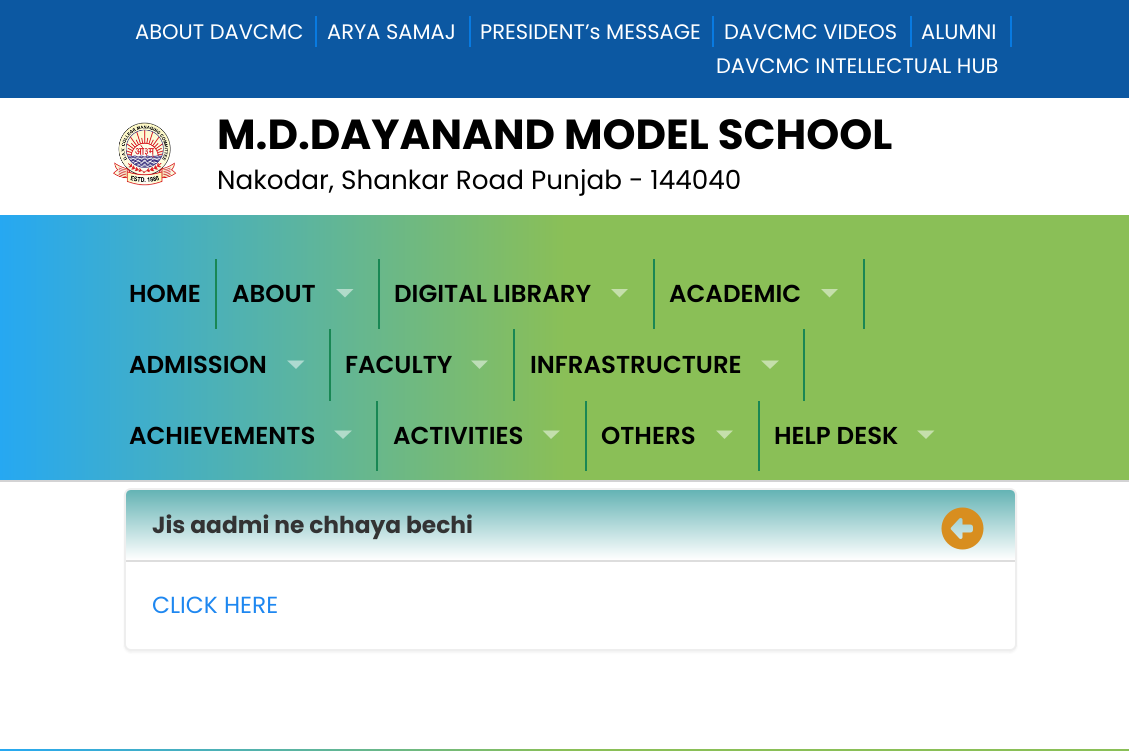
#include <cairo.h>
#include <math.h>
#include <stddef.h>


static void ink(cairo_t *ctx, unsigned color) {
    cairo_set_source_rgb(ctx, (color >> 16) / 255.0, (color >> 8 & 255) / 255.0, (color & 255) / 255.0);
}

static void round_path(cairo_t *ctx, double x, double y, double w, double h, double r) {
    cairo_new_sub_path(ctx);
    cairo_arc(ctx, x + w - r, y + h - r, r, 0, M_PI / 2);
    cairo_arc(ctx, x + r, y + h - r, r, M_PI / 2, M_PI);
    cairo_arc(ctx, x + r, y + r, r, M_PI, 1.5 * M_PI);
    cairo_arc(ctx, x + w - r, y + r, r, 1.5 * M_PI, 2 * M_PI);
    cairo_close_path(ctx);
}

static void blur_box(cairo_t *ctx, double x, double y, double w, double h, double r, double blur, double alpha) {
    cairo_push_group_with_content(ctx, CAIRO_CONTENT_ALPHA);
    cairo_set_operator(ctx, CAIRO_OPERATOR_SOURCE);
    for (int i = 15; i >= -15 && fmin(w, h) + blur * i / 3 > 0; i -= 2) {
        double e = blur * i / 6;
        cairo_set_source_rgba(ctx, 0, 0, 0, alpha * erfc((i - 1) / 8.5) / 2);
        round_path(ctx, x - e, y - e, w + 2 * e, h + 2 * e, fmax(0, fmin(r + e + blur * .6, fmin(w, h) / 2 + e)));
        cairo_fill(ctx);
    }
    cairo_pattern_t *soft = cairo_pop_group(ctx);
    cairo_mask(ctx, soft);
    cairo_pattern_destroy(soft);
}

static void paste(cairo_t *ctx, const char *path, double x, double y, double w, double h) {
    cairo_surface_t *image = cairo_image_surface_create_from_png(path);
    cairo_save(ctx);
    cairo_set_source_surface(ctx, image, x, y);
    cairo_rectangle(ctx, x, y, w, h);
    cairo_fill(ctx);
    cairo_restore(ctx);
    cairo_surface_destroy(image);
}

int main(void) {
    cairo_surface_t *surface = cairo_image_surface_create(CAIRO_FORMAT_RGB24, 1129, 751);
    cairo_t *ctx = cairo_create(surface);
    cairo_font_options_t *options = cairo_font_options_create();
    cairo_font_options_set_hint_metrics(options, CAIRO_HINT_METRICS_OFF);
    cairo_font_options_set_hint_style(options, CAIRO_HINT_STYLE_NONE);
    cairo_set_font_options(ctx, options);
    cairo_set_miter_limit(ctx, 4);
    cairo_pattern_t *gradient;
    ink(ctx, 0xFFFFFF);
    cairo_paint(ctx);
    ink(ctx, 0x0C58A2);
    cairo_rectangle(ctx, 0, 0, 1129, 98);
    cairo_fill(ctx);
    ink(ctx, 0x087AE1);
    cairo_rectangle(ctx, 315, 16, 2, 31);
    cairo_fill(ctx);
    cairo_select_font_face(ctx, "Poppins", CAIRO_FONT_SLANT_NORMAL, CAIRO_FONT_WEIGHT_NORMAL);
    cairo_set_font_size(ctx, 21);
    ink(ctx, 0xFFFFFF);
    cairo_move_to(ctx, 135, 39);
    cairo_show_text(ctx, "ABOUT DAVCMC");
    ink(ctx, 0x087AE1);
    cairo_rectangle(ctx, 469, 16, 2, 31);
    cairo_fill(ctx);
    ink(ctx, 0xFFFFFF);
    cairo_move_to(ctx, 327, 39);
    cairo_show_text(ctx, "ARYA SAMAJ");
    ink(ctx, 0x087AE1);
    cairo_rectangle(ctx, 712, 16, 2, 31);
    cairo_fill(ctx);
    ink(ctx, 0xFFFFFF);
    cairo_move_to(ctx, 480, 39);
    cairo_show_text(ctx, "PRESIDENT’s MESSAGE");
    ink(ctx, 0x087AE1);
    cairo_rectangle(ctx, 910, 16, 2, 31);
    cairo_fill(ctx);
    ink(ctx, 0xFFFFFF);
    cairo_move_to(ctx, 724, 39);
    cairo_show_text(ctx, "DAVCMC VIDEOS");
    ink(ctx, 0x087AE1);
    cairo_rectangle(ctx, 1010, 16, 2, 31);
    cairo_fill(ctx);
    ink(ctx, 0xFFFFFF);
    cairo_move_to(ctx, 921, 39);
    cairo_show_text(ctx, "ALUMNI");
    cairo_move_to(ctx, 716, 73);
    cairo_show_text(ctx, "DAVCMC INTELLECTUAL HUB");
    paste(ctx, "media/1.png", 113, 122, 64, 64);
    cairo_select_font_face(ctx, "Poppins", CAIRO_FONT_SLANT_NORMAL, CAIRO_FONT_WEIGHT_BOLD);
    cairo_set_font_size(ctx, 42);
    ink(ctx, 0x000000);
    cairo_move_to(ctx, 217, 149);
    cairo_show_text(ctx, "M.D.DAYANAND MODEL SCHOOL");
    cairo_select_font_face(ctx, "Poppins", CAIRO_FONT_SLANT_NORMAL, CAIRO_FONT_WEIGHT_NORMAL);
    cairo_set_font_size(ctx, 26.25);
    cairo_move_to(ctx, 217, 189);
    cairo_show_text(ctx, "Nakodar, Shankar Road Punjab - 144040");
    gradient = cairo_pattern_create_linear(0, 347, 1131, 347);
    cairo_pattern_add_color_stop_rgba(gradient, 0, 0.149, 0.659, 0.949, 1);
    cairo_pattern_add_color_stop_rgba(gradient, 0.5, 0.541, 0.749, 0.341, 1);
    cairo_set_source(ctx, gradient);
    cairo_pattern_destroy(gradient);
    cairo_rectangle(ctx, 0, 215, 1129, 265);
    cairo_fill(ctx);
    ink(ctx, 0xD3D3D4);
    cairo_rectangle(ctx, 0, 480, 1129, 2);
    cairo_fill(ctx);
    ink(ctx, 0x198754);
    cairo_rectangle(ctx, 215, 259, 2, 70);
    cairo_fill(ctx);
    cairo_select_font_face(ctx, "Poppins SemiBold", CAIRO_FONT_SLANT_NORMAL, CAIRO_FONT_WEIGHT_NORMAL);
    cairo_set_font_size(ctx, 24.5);
    ink(ctx, 0x000000);
    cairo_move_to(ctx, 129, 302);
    cairo_show_text(ctx, "HOME");
    ink(ctx, 0x198754);
    cairo_rectangle(ctx, 378, 259, 2, 70);
    cairo_fill(ctx);
    ink(ctx, 0x000000);
    cairo_move_to(ctx, 232, 302);
    cairo_show_text(ctx, "ABOUT");
    cairo_set_source_rgba(ctx, 1, 1, 1, 0.5);
    cairo_new_path(ctx);
    cairo_move_to(ctx, 336, 289);
    cairo_line_to(ctx, 353.5, 289);
    cairo_line_to(ctx, 345, 297.5);
    cairo_close_path(ctx);
    cairo_fill(ctx);
    ink(ctx, 0x198754);
    cairo_rectangle(ctx, 653, 259, 2, 70);
    cairo_fill(ctx);
    ink(ctx, 0x000000);
    cairo_move_to(ctx, 394, 302);
    cairo_show_text(ctx, "DIGITAL LIBRARY");
    ink(ctx, 0xC5DFAB);
    cairo_new_path(ctx);
    cairo_move_to(ctx, 611, 289);
    cairo_line_to(ctx, 628, 289);
    cairo_line_to(ctx, 619.5, 297.5);
    cairo_close_path(ctx);
    cairo_fill(ctx);
    ink(ctx, 0x198754);
    cairo_rectangle(ctx, 863, 259, 2, 70);
    cairo_fill(ctx);
    ink(ctx, 0x000000);
    cairo_move_to(ctx, 669, 302);
    cairo_show_text(ctx, "ACADEMIC");
    ink(ctx, 0xC5DFAB);
    cairo_new_path(ctx);
    cairo_move_to(ctx, 821, 289);
    cairo_line_to(ctx, 838, 289);
    cairo_line_to(ctx, 829.5, 297.5);
    cairo_close_path(ctx);
    cairo_fill(ctx);
    ink(ctx, 0x198754);
    cairo_rectangle(ctx, 329, 329, 2, 72);
    cairo_fill(ctx);
    ink(ctx, 0x000000);
    cairo_move_to(ctx, 129, 373);
    cairo_show_text(ctx, "ADMISSION");
    cairo_set_source_rgba(ctx, 1, 1, 1, 0.5);
    cairo_new_path(ctx);
    cairo_move_to(ctx, 287, 360.5);
    cairo_line_to(ctx, 304.5, 360.5);
    cairo_line_to(ctx, 296, 369);
    cairo_close_path(ctx);
    cairo_fill(ctx);
    ink(ctx, 0x198754);
    cairo_rectangle(ctx, 513, 329, 2, 72);
    cairo_fill(ctx);
    ink(ctx, 0x000000);
    cairo_move_to(ctx, 345, 373);
    cairo_show_text(ctx, "FACULTY");
    cairo_set_source_rgba(ctx, 1, 1, 1, 0.5);
    cairo_new_path(ctx);
    cairo_move_to(ctx, 471, 360.5);
    cairo_line_to(ctx, 488, 360.5);
    cairo_line_to(ctx, 479.5, 369);
    cairo_close_path(ctx);
    cairo_fill(ctx);
    ink(ctx, 0x198754);
    cairo_rectangle(ctx, 803, 329, 2, 72);
    cairo_fill(ctx);
    ink(ctx, 0x000000);
    cairo_move_to(ctx, 530, 373);
    cairo_show_text(ctx, "INFRASTRUCTURE");
    ink(ctx, 0xC5DFAB);
    cairo_new_path(ctx);
    cairo_move_to(ctx, 761, 360.5);
    cairo_line_to(ctx, 779, 360.5);
    cairo_line_to(ctx, 770, 369);
    cairo_close_path(ctx);
    cairo_fill(ctx);
    ink(ctx, 0x198754);
    cairo_rectangle(ctx, 376, 401, 2, 70);
    cairo_fill(ctx);
    ink(ctx, 0x000000);
    cairo_move_to(ctx, 129, 444);
    cairo_show_text(ctx, "ACHIEVEMENTS");
    cairo_set_source_rgba(ctx, 1, 1, 1, 0.5);
    cairo_new_path(ctx);
    cairo_move_to(ctx, 334, 430.5);
    cairo_line_to(ctx, 352, 430.5);
    cairo_line_to(ctx, 343, 439);
    cairo_close_path(ctx);
    cairo_fill(ctx);
    ink(ctx, 0x198754);
    cairo_rectangle(ctx, 585, 401, 2, 70);
    cairo_fill(ctx);
    ink(ctx, 0x000000);
    cairo_move_to(ctx, 393, 444);
    cairo_show_text(ctx, "ACTIVITIES");
    cairo_set_source_rgba(ctx, 1, 1, 1, 0.5);
    cairo_new_path(ctx);
    cairo_move_to(ctx, 542.5, 430.5);
    cairo_line_to(ctx, 560, 430.5);
    cairo_line_to(ctx, 551, 439);
    cairo_close_path(ctx);
    cairo_fill(ctx);
    ink(ctx, 0x198754);
    cairo_rectangle(ctx, 758, 401, 2, 70);
    cairo_fill(ctx);
    ink(ctx, 0x000000);
    cairo_move_to(ctx, 601, 444);
    cairo_show_text(ctx, "OTHERS");
    ink(ctx, 0xC5DFAB);
    cairo_new_path(ctx);
    cairo_move_to(ctx, 716, 430.5);
    cairo_line_to(ctx, 733, 430.5);
    cairo_line_to(ctx, 724.5, 439);
    cairo_close_path(ctx);
    cairo_fill(ctx);
    ink(ctx, 0x000000);
    cairo_move_to(ctx, 774, 444);
    cairo_show_text(ctx, "HELP DESK");
    ink(ctx, 0xC5DFAB);
    cairo_new_path(ctx);
    cairo_move_to(ctx, 917, 430.5);
    cairo_line_to(ctx, 934.5, 430.5);
    cairo_line_to(ctx, 926, 439);
    cairo_close_path(ctx);
    cairo_fill(ctx);
    ink(ctx, 0x000000);
    blur_box(ctx, 124, 490, 893, 163, 7, 1, 0.05);
    ink(ctx, 0xFFFFFF);
    round_path(ctx, 125, 489, 891, 161, 6);
    cairo_fill_preserve(ctx);
    ink(ctx, 0xEEEEEE);
    cairo_stroke(ctx);
    gradient = cairo_pattern_create_linear(571, 490, 571, 560);
    cairo_pattern_add_color_stop_rgba(gradient, 0, 0.392, 0.702, 0.706, 1);
    cairo_pattern_add_color_stop_rgba(gradient, 1, 1, 1, 1, 1);
    cairo_set_source(ctx, gradient);
    cairo_pattern_destroy(gradient);
    cairo_new_path(ctx);
    cairo_move_to(ctx, 131, 490);
    cairo_line_to(ctx, 1010, 490);
    cairo_curve_to(ctx, 1013, 490, 1015, 492, 1015, 495);
    cairo_line_to(ctx, 1015, 560);
    cairo_line_to(ctx, 126, 560);
    cairo_line_to(ctx, 126, 495);
    cairo_curve_to(ctx, 126, 492, 128, 490, 131, 490);
    cairo_close_path(ctx);
    cairo_fill(ctx);
    ink(ctx, 0xDDDDDD);
    cairo_rectangle(ctx, 126, 560, 889, 2);
    cairo_fill(ctx);
    cairo_select_font_face(ctx, "Poppins", CAIRO_FONT_SLANT_NORMAL, CAIRO_FONT_WEIGHT_BOLD);
    cairo_set_font_size(ctx, 23.3);
    ink(ctx, 0x333333);
    cairo_move_to(ctx, 152, 533);
    cairo_show_text(ctx, "Jis aadmi ne chhaya bechi");
    paste(ctx, "media/2.png", 941, 507, 43, 43);
    cairo_select_font_face(ctx, "Poppins", CAIRO_FONT_SLANT_NORMAL, CAIRO_FONT_WEIGHT_NORMAL);
    ink(ctx, 0x1E87F0);
    cairo_move_to(ctx, 152, 613);
    cairo_show_text(ctx, "CLICK HERE");
    gradient = cairo_pattern_create_linear(0, 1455, 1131, 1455);
    cairo_pattern_add_color_stop_rgba(gradient, 0, 0.149, 0.659, 0.949, 1);
    cairo_pattern_add_color_stop_rgba(gradient, 0.5, 0.541, 0.749, 0.341, 1);
    cairo_set_source(ctx, gradient);
    cairo_pattern_destroy(gradient);
    cairo_rectangle(ctx, 0, 749, 1129, 2);
    cairo_fill(ctx);
    cairo_surface_write_to_png(surface, "image.png");
    cairo_font_options_destroy(options);
    cairo_destroy(ctx);
    cairo_surface_destroy(surface);
    return 0;
}
